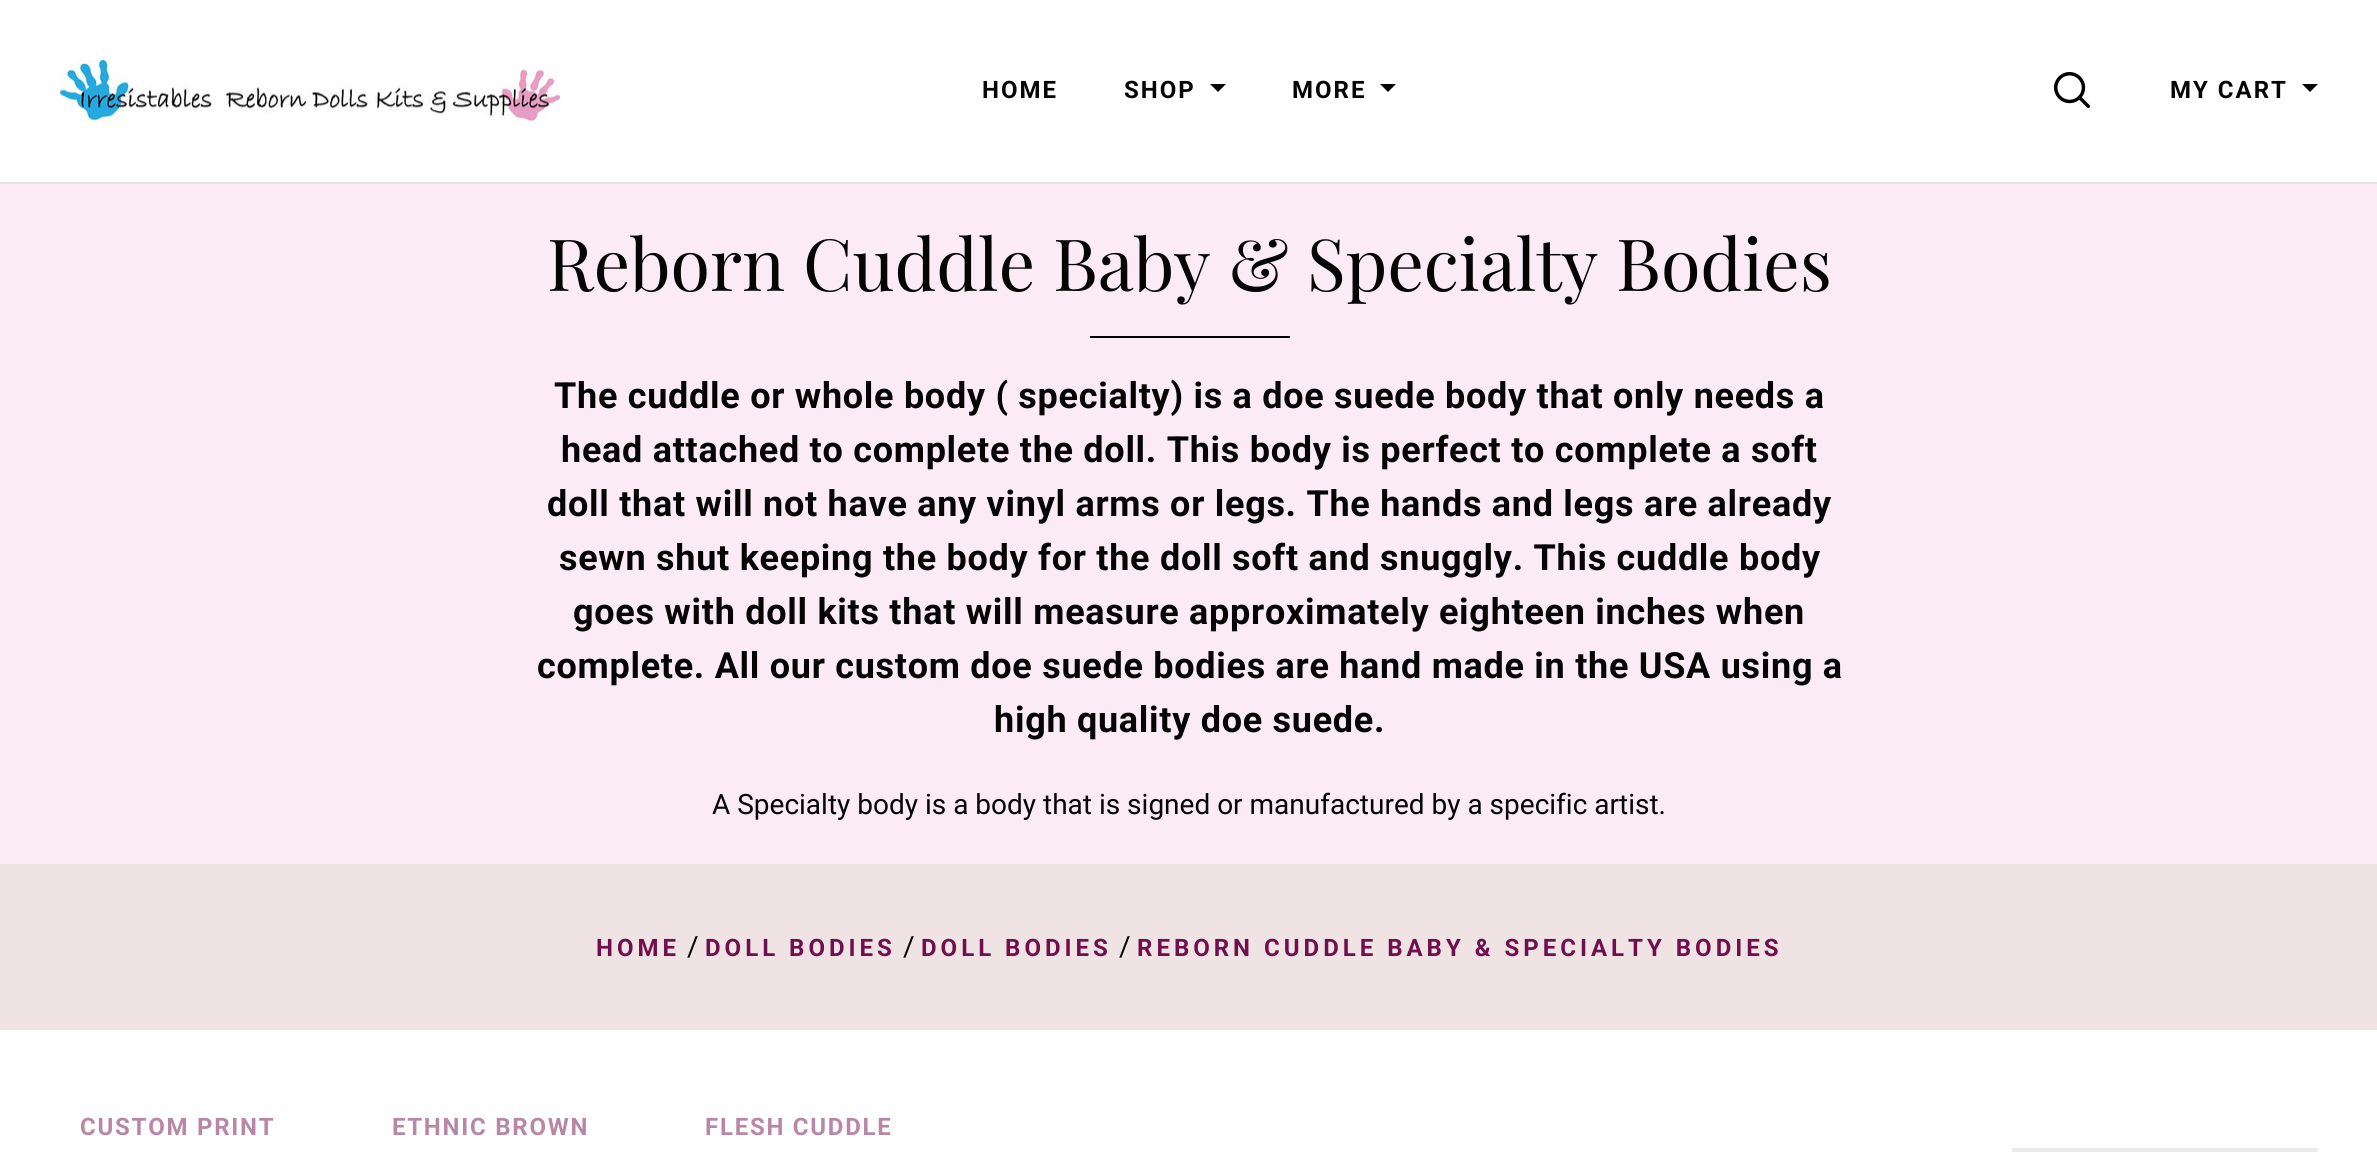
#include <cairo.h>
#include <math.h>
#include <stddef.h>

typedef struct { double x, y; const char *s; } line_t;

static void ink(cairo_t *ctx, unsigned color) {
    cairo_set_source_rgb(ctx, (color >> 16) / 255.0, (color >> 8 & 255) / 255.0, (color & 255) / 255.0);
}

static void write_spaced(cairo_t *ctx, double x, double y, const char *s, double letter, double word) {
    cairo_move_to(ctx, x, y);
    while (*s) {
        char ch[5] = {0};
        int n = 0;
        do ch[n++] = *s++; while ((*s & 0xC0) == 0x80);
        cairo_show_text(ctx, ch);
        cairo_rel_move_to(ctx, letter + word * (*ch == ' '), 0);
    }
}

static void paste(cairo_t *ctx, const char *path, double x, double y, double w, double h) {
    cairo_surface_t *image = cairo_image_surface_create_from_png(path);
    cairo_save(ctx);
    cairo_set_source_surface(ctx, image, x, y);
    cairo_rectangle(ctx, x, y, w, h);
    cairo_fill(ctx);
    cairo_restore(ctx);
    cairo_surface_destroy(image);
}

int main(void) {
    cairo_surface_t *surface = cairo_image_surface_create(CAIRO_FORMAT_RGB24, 2377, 1152);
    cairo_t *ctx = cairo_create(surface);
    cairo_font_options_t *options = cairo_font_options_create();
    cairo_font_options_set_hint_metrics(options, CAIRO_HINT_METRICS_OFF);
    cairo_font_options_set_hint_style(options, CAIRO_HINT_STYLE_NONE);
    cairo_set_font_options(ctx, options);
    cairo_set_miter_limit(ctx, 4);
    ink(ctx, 0xF0E3E3);
    cairo_paint(ctx);
    ink(ctx, 0xFFFFFF);
    cairo_rectangle(ctx, 0, 0, 2377, 182);
    cairo_fill(ctx);
    ink(ctx, 0xE4E4E4);
    cairo_rectangle(ctx, 0, 182, 2377, 2);
    cairo_fill(ctx);
    paste(ctx, "media/1.png", 60, 60, 500, 63);
    cairo_select_font_face(ctx, "Roboto", CAIRO_FONT_SLANT_NORMAL, CAIRO_FONT_WEIGHT_BOLD);
    cairo_set_font_size(ctx, 24);
    ink(ctx, 0x050505);
    write_spaced(ctx, 982, 98, "HOME", 2, 0);
    write_spaced(ctx, 1124, 98, "SHOP", 2, 0);
    cairo_new_path(ctx);
    cairo_move_to(ctx, 1210, 84);
    cairo_line_to(ctx, 1226, 84);
    cairo_line_to(ctx, 1218, 92);
    cairo_close_path(ctx);
    cairo_fill(ctx);
    write_spaced(ctx, 1292, 98, "MORE", 2, 0);
    cairo_new_path(ctx);
    cairo_move_to(ctx, 1380, 84);
    cairo_line_to(ctx, 1396, 84);
    cairo_line_to(ctx, 1388, 92);
    cairo_close_path(ctx);
    cairo_fill(ctx);
    paste(ctx, "media/2.png", 2054, 72, 36, 36);
    write_spaced(ctx, 2170, 98, "MY CART", 2, 0);
    cairo_new_path(ctx);
    cairo_move_to(ctx, 2302, 84);
    cairo_line_to(ctx, 2318, 84);
    cairo_line_to(ctx, 2310, 92);
    cairo_close_path(ctx);
    cairo_fill(ctx);
    ink(ctx, 0xFAEBF5);
    cairo_rectangle(ctx, 0, 184, 2377, 680);
    cairo_fill(ctx);
    cairo_select_font_face(ctx, "Playfair Display", CAIRO_FONT_SLANT_NORMAL, CAIRO_FONT_WEIGHT_NORMAL);
    cairo_set_font_size(ctx, 72);
    ink(ctx, 0x050505);
    cairo_move_to(ctx, 547, 291);
    cairo_show_text(ctx, "Reborn Cuddle Baby & Specialty Bodies");
    ink(ctx, 0x000000);
    cairo_rectangle(ctx, 1090, 336, 200, 2);
    cairo_fill(ctx);
    cairo_select_font_face(ctx, "Roboto", CAIRO_FONT_SLANT_NORMAL, CAIRO_FONT_WEIGHT_BOLD);
    cairo_set_font_size(ctx, 36);
    ink(ctx, 0x050505);
    {
        static const line_t items[] = {
            {554, 408, "The cuddle or whole body ( specialty) is a doe suede body that only needs a"},
            {561, 462, "head attached to complete the doll. This body is perfect to complete a soft"},
            {547, 516, "doll that will not have any vinyl arms or legs. The hands and legs are already"},
            {559, 570, "sewn shut keeping the body for the doll soft and snuggly. This cuddle body"},
            {573, 624, "goes with doll kits that will measure approximately eighteen inches when"},
            {537, 678, "complete. All our custom doe suede bodies are hand made in the USA using a"},
            {994, 732, "high quality doe suede."},
        };
        for (size_t i = 0; i < sizeof items / sizeof *items; i++) {
            write_spaced(ctx, items[i].x, items[i].y, items[i].s, 0.72, 0);
        }
    }
    cairo_select_font_face(ctx, "Roboto", CAIRO_FONT_SLANT_NORMAL, CAIRO_FONT_WEIGHT_NORMAL);
    cairo_set_font_size(ctx, 28);
    cairo_move_to(ctx, 712, 814);
    cairo_show_text(ctx, "A Specialty body is a body that is signed or manufactured by a specific artist.");
    cairo_select_font_face(ctx, "Roboto", CAIRO_FONT_SLANT_NORMAL, CAIRO_FONT_WEIGHT_BOLD);
    cairo_set_font_size(ctx, 24);
    ink(ctx, 0x700F4D);
    write_spaced(ctx, 596, 956, "HOME", 4, 0);
    cairo_select_font_face(ctx, "Roboto", CAIRO_FONT_SLANT_NORMAL, CAIRO_FONT_WEIGHT_NORMAL);
    cairo_set_font_size(ctx, 28);
    ink(ctx, 0x050505);
    cairo_move_to(ctx, 687, 956);
    cairo_show_text(ctx, "/");
    cairo_select_font_face(ctx, "Roboto", CAIRO_FONT_SLANT_NORMAL, CAIRO_FONT_WEIGHT_BOLD);
    cairo_set_font_size(ctx, 24);
    ink(ctx, 0x700F4D);
    write_spaced(ctx, 705, 956, "DOLL BODIES", 4, 0);
    cairo_select_font_face(ctx, "Roboto", CAIRO_FONT_SLANT_NORMAL, CAIRO_FONT_WEIGHT_NORMAL);
    cairo_set_font_size(ctx, 28);
    ink(ctx, 0x050505);
    cairo_move_to(ctx, 903, 956);
    cairo_show_text(ctx, "/");
    cairo_select_font_face(ctx, "Roboto", CAIRO_FONT_SLANT_NORMAL, CAIRO_FONT_WEIGHT_BOLD);
    cairo_set_font_size(ctx, 24);
    ink(ctx, 0x700F4D);
    write_spaced(ctx, 921, 956, "DOLL BODIES", 4, 0);
    cairo_select_font_face(ctx, "Roboto", CAIRO_FONT_SLANT_NORMAL, CAIRO_FONT_WEIGHT_NORMAL);
    cairo_set_font_size(ctx, 28);
    ink(ctx, 0x050505);
    cairo_move_to(ctx, 1119, 956);
    cairo_show_text(ctx, "/");
    cairo_select_font_face(ctx, "Roboto", CAIRO_FONT_SLANT_NORMAL, CAIRO_FONT_WEIGHT_BOLD);
    cairo_set_font_size(ctx, 24);
    ink(ctx, 0x700F4D);
    write_spaced(ctx, 1137, 956, "REBORN CUDDLE BABY & SPECIALTY BODIES", 4, 0);
    ink(ctx, 0xFFFFFF);
    cairo_rectangle(ctx, 0, 1030, 2377, 122);
    cairo_fill(ctx);
    ink(ctx, 0xB887A6);
    {
        static const line_t items[] = {
            {80, 1135, "CUSTOM PRINT"},
            {392, 1135, "ETHNIC BROWN"},
            {705, 1135, "FLESH CUDDLE"},
        };
        for (size_t i = 0; i < sizeof items / sizeof *items; i++) {
            write_spaced(ctx, items[i].x, items[i].y, items[i].s, 1.75, 0);
        }
    }
    ink(ctx, 0xEAEAEA);
    cairo_rectangle(ctx, 2012, 1148, 306, 4);
    cairo_fill(ctx);
    cairo_surface_write_to_png(surface, "image.png");
    cairo_font_options_destroy(options);
    cairo_destroy(ctx);
    cairo_surface_destroy(surface);
    return 0;
}
